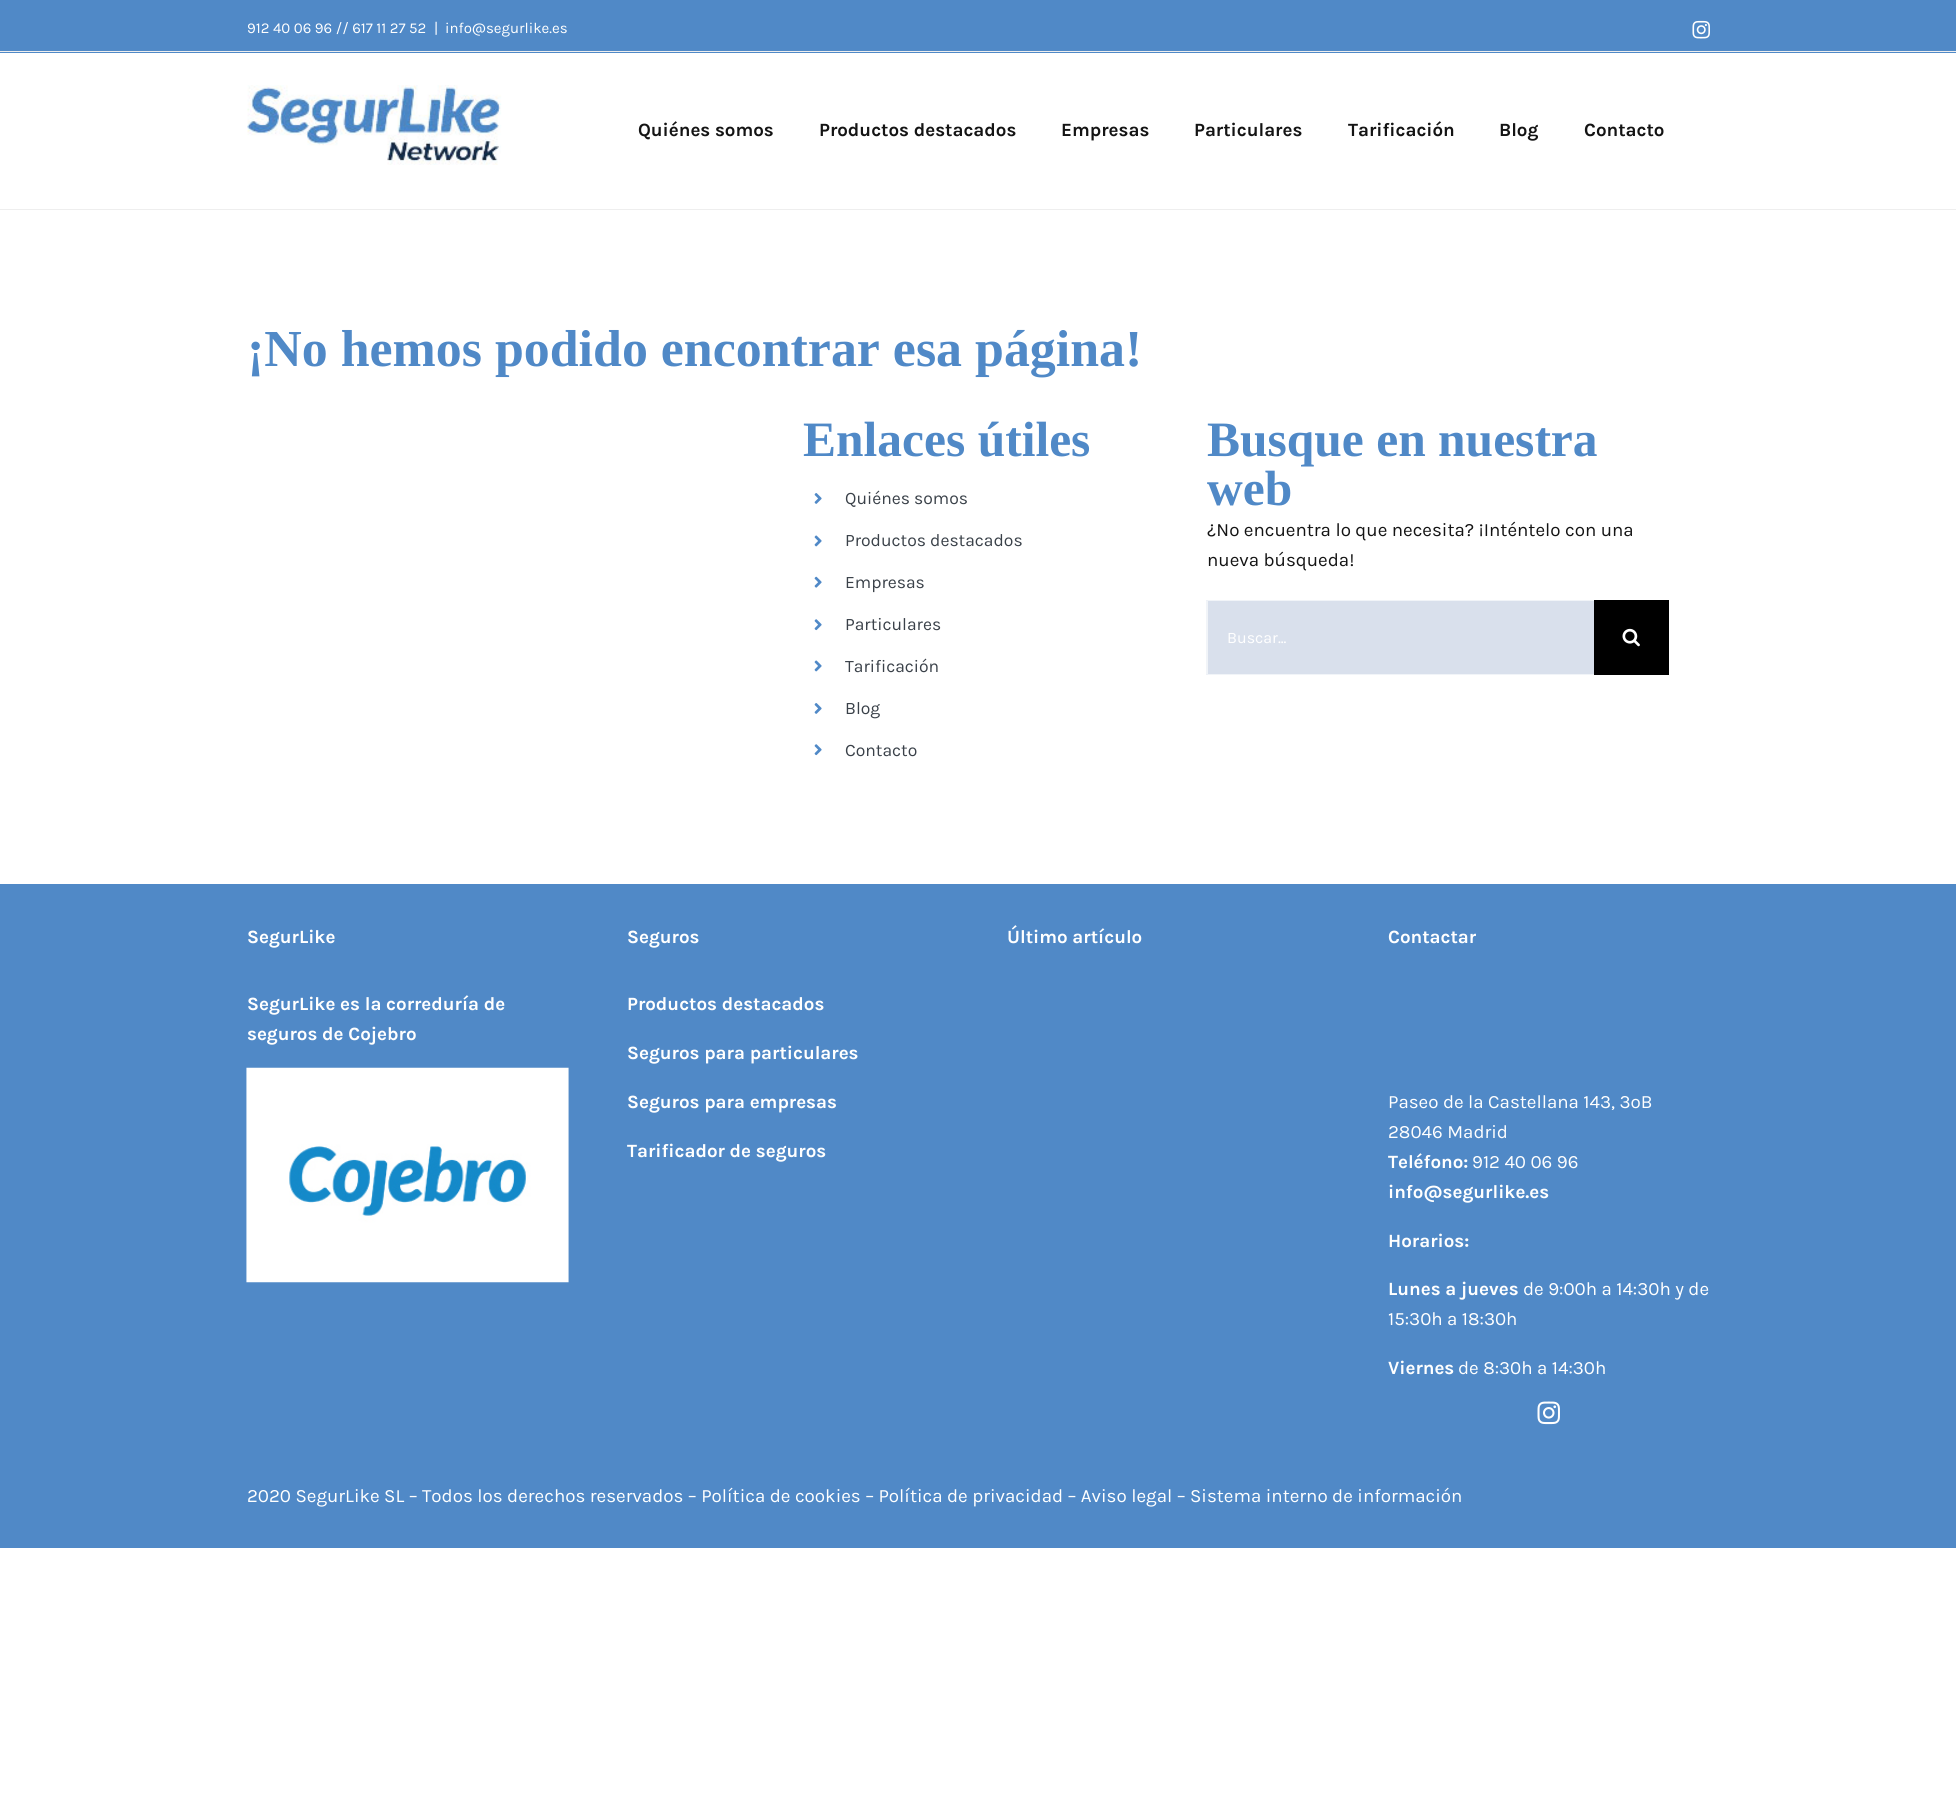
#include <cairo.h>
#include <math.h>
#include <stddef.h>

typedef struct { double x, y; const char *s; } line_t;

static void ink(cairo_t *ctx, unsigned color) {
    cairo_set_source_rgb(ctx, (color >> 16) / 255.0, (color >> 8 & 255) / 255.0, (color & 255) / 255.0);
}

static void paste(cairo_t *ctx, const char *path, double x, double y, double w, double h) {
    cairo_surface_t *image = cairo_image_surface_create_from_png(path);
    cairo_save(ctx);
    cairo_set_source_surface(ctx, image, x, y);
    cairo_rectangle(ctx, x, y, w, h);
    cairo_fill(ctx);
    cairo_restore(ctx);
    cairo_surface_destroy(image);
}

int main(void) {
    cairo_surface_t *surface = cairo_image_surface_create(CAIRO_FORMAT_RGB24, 1956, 1813);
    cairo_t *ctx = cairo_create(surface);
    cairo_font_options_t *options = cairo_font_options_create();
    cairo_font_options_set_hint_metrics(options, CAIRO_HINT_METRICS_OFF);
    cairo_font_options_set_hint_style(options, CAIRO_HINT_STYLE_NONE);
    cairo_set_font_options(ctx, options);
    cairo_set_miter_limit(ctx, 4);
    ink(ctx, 0xFFFFFF);
    cairo_paint(ctx);
    ink(ctx, 0x5089C7);
    cairo_rectangle(ctx, 0, 0, 1956, 53);
    cairo_fill(ctx);
    ink(ctx, 0xEEEEEE);
    cairo_rectangle(ctx, 0, 51, 1956, 1);
    cairo_fill(ctx);
    cairo_select_font_face(ctx, "Karla", CAIRO_FONT_SLANT_NORMAL, CAIRO_FONT_WEIGHT_NORMAL);
    cairo_set_font_size(ctx, 15);
    ink(ctx, 0xFFFFFF);
    {
        static const line_t items[] = {
            {247, 33, "912 40 06 96 // 617 11 27 52"},
            {434, 33, "|"},
            {445, 33, "info@segurlike.es"},
        };
        for (size_t i = 0; i < sizeof items / sizeof *items; i++) {
            cairo_move_to(ctx, items[i].x, items[i].y);
            cairo_show_text(ctx, items[i].s);
        }
    }
    paste(ctx, "media/1.png", 1692, 20, 18, 19);
    ink(ctx, 0xEEEEEE);
    cairo_rectangle(ctx, 0, 209, 1956, 1);
    cairo_fill(ctx);
    paste(ctx, "media/2.png", 247, 85, 255, 80);
    cairo_select_font_face(ctx, "Karla", CAIRO_FONT_SLANT_NORMAL, CAIRO_FONT_WEIGHT_BOLD);
    cairo_set_font_size(ctx, 18.75);
    ink(ctx, 0x141414);
    {
        static const line_t items[] = {
            {638, 136, "Quiénes somos"},
            {819, 136, "Productos destacados"},
            {1061, 136, "Empresas"},
            {1194, 136, "Particulares"},
            {1348, 136, "Tarificación"},
            {1499, 136, "Blog"},
            {1584, 136, "Contacto"},
        };
        for (size_t i = 0; i < sizeof items / sizeof *items; i++) {
            cairo_move_to(ctx, items[i].x, items[i].y);
            cairo_show_text(ctx, items[i].s);
        }
    }
    cairo_select_font_face(ctx, "Liberation Serif", CAIRO_FONT_SLANT_NORMAL, CAIRO_FONT_WEIGHT_BOLD);
    cairo_set_font_size(ctx, 51.9);
    ink(ctx, 0x5089C7);
    cairo_move_to(ctx, 247, 366);
    cairo_show_text(ctx, "¡No hemos podido encontrar esa página!");
    cairo_set_font_size(ctx, 49.5);
    cairo_move_to(ctx, 803, 456);
    cairo_show_text(ctx, "Enlaces útiles");
    paste(ctx, "media/3.png", 814, 493, 8, 11);
    cairo_select_font_face(ctx, "Karla", CAIRO_FONT_SLANT_NORMAL, CAIRO_FONT_WEIGHT_NORMAL);
    cairo_set_font_size(ctx, 17.5);
    ink(ctx, 0x3A4149);
    cairo_move_to(ctx, 845, 504);
    cairo_show_text(ctx, "Quiénes somos");
    paste(ctx, "media/4.png", 814, 535, 8, 12);
    cairo_move_to(ctx, 845, 546);
    cairo_show_text(ctx, "Productos destacados");
    paste(ctx, "media/5.png", 814, 576, 8, 12);
    cairo_move_to(ctx, 845, 588);
    cairo_show_text(ctx, "Empresas");
    paste(ctx, "media/6.png", 814, 619, 8, 12);
    cairo_move_to(ctx, 845, 630);
    cairo_show_text(ctx, "Particulares");
    paste(ctx, "media/4.png", 814, 660, 8, 12);
    cairo_move_to(ctx, 845, 672);
    cairo_show_text(ctx, "Tarificación");
    paste(ctx, "media/3.png", 814, 703, 8, 11);
    cairo_move_to(ctx, 845, 714);
    cairo_show_text(ctx, "Blog");
    paste(ctx, "media/6.png", 814, 744, 8, 12);
    cairo_move_to(ctx, 845, 756);
    cairo_show_text(ctx, "Contacto");
    cairo_select_font_face(ctx, "Liberation Serif", CAIRO_FONT_SLANT_NORMAL, CAIRO_FONT_WEIGHT_BOLD);
    cairo_set_font_size(ctx, 49.5);
    ink(ctx, 0x5089C7);
    cairo_move_to(ctx, 1207, 456);
    cairo_show_text(ctx, "Busque en nuestra");
    cairo_move_to(ctx, 1207, 505);
    cairo_show_text(ctx, "web");
    cairo_select_font_face(ctx, "Karla", CAIRO_FONT_SLANT_NORMAL, CAIRO_FONT_WEIGHT_NORMAL);
    cairo_set_font_size(ctx, 18.75);
    ink(ctx, 0x141414);
    cairo_move_to(ctx, 1207, 536);
    cairo_show_text(ctx, "¿No encuentra lo que necesita? ¡Inténtelo con una");
    cairo_move_to(ctx, 1207, 566);
    cairo_show_text(ctx, "nueva búsqueda!");
    ink(ctx, 0xD9E0EC);
    cairo_rectangle(ctx, 1206, 600, 388, 75);
    cairo_fill(ctx);
    ink(ctx, 0xF1F4F8);
    cairo_new_path(ctx);
    cairo_move_to(ctx, 1206, 600);
    cairo_line_to(ctx, 1594, 600);
    cairo_line_to(ctx, 1594, 601);
    cairo_line_to(ctx, 1208, 601);
    cairo_close_path(ctx);
    cairo_fill(ctx);
    cairo_new_path(ctx);
    cairo_move_to(ctx, 1594, 675);
    cairo_line_to(ctx, 1206, 675);
    cairo_line_to(ctx, 1208, 674);
    cairo_line_to(ctx, 1594, 674);
    cairo_close_path(ctx);
    cairo_fill(ctx);
    cairo_set_source_rgba(ctx, 1, 1, 1, 0.63);
    cairo_new_path(ctx);
    cairo_move_to(ctx, 1206, 675);
    cairo_line_to(ctx, 1206, 600);
    cairo_line_to(ctx, 1208, 601);
    cairo_line_to(ctx, 1208, 674);
    cairo_close_path(ctx);
    cairo_fill(ctx);
    cairo_set_font_size(ctx, 16);
    ink(ctx, 0xFFFFFF);
    cairo_move_to(ctx, 1227, 643);
    cairo_show_text(ctx, "Buscar...");
    ink(ctx, 0x000000);
    cairo_rectangle(ctx, 1594, 600, 75, 75);
    cairo_fill(ctx);
    paste(ctx, "media/7.png", 1622, 628, 18, 19);
    ink(ctx, 0x5089C7);
    cairo_rectangle(ctx, 0, 884, 1956, 664);
    cairo_fill(ctx);
    cairo_select_font_face(ctx, "Karla", CAIRO_FONT_SLANT_NORMAL, CAIRO_FONT_WEIGHT_BOLD);
    cairo_set_font_size(ctx, 18.75);
    ink(ctx, 0xFFFFFF);
    {
        static const line_t items[] = {
            {247, 943, "SegurLike"},
            {247, 1010, "SegurLike es la correduría de"},
            {247, 1040, "seguros de Cojebro"},
        };
        for (size_t i = 0; i < sizeof items / sizeof *items; i++) {
            cairo_move_to(ctx, items[i].x, items[i].y);
            cairo_show_text(ctx, items[i].s);
        }
    }
    paste(ctx, "media/8.png", 246, 1067, 323, 216);
    {
        static const line_t items[] = {
            {627, 943, "Seguros"},
            {627, 1010, "Productos destacados"},
            {627, 1059, "Seguros para particulares"},
            {627, 1108, "Seguros para empresas"},
            {627, 1157, "Tarificador de seguros"},
            {1007, 943, "Último artículo"},
            {1388, 943, "Contactar"},
        };
        for (size_t i = 0; i < sizeof items / sizeof *items; i++) {
            cairo_move_to(ctx, items[i].x, items[i].y);
            cairo_show_text(ctx, items[i].s);
        }
    }
    cairo_select_font_face(ctx, "Karla", CAIRO_FONT_SLANT_NORMAL, CAIRO_FONT_WEIGHT_NORMAL);
    cairo_move_to(ctx, 1388, 1108);
    cairo_show_text(ctx, "Paseo de la Castellana 143, 3ºB");
    cairo_move_to(ctx, 1388, 1138);
    cairo_show_text(ctx, "28046 Madrid");
    cairo_select_font_face(ctx, "Karla", CAIRO_FONT_SLANT_NORMAL, CAIRO_FONT_WEIGHT_BOLD);
    cairo_move_to(ctx, 1388, 1168);
    cairo_show_text(ctx, "Teléfono:");
    cairo_select_font_face(ctx, "Karla", CAIRO_FONT_SLANT_NORMAL, CAIRO_FONT_WEIGHT_NORMAL);
    cairo_move_to(ctx, 1472, 1168);
    cairo_show_text(ctx, "912 40 06 96");
    cairo_select_font_face(ctx, "Karla", CAIRO_FONT_SLANT_NORMAL, CAIRO_FONT_WEIGHT_BOLD);
    {
        static const line_t items[] = {
            {1388, 1198, "info@segurlike.es"},
            {1388, 1247, "Horarios:"},
            {1388, 1295, "Lunes a jueves"},
        };
        for (size_t i = 0; i < sizeof items / sizeof *items; i++) {
            cairo_move_to(ctx, items[i].x, items[i].y);
            cairo_show_text(ctx, items[i].s);
        }
    }
    cairo_select_font_face(ctx, "Karla", CAIRO_FONT_SLANT_NORMAL, CAIRO_FONT_WEIGHT_NORMAL);
    cairo_move_to(ctx, 1523, 1295);
    cairo_show_text(ctx, "de 9:00h a 14:30h y de");
    cairo_move_to(ctx, 1388, 1325);
    cairo_show_text(ctx, "15:30h a 18:30h");
    cairo_select_font_face(ctx, "Karla", CAIRO_FONT_SLANT_NORMAL, CAIRO_FONT_WEIGHT_BOLD);
    cairo_move_to(ctx, 1388, 1374);
    cairo_show_text(ctx, "Viernes");
    cairo_select_font_face(ctx, "Karla", CAIRO_FONT_SLANT_NORMAL, CAIRO_FONT_WEIGHT_NORMAL);
    cairo_move_to(ctx, 1458, 1374);
    cairo_show_text(ctx, "de 8:30h a 14:30h");
    paste(ctx, "media/9.png", 1537, 1401, 23, 24);
    cairo_move_to(ctx, 247, 1502);
    cairo_show_text(ctx, "2020 SegurLike SL – Todos los derechos reservados – Política de cookies – Política de privacidad – Aviso legal – Sistema interno de información");
    cairo_surface_write_to_png(surface, "image.png");
    cairo_font_options_destroy(options);
    cairo_destroy(ctx);
    cairo_surface_destroy(surface);
    return 0;
}
